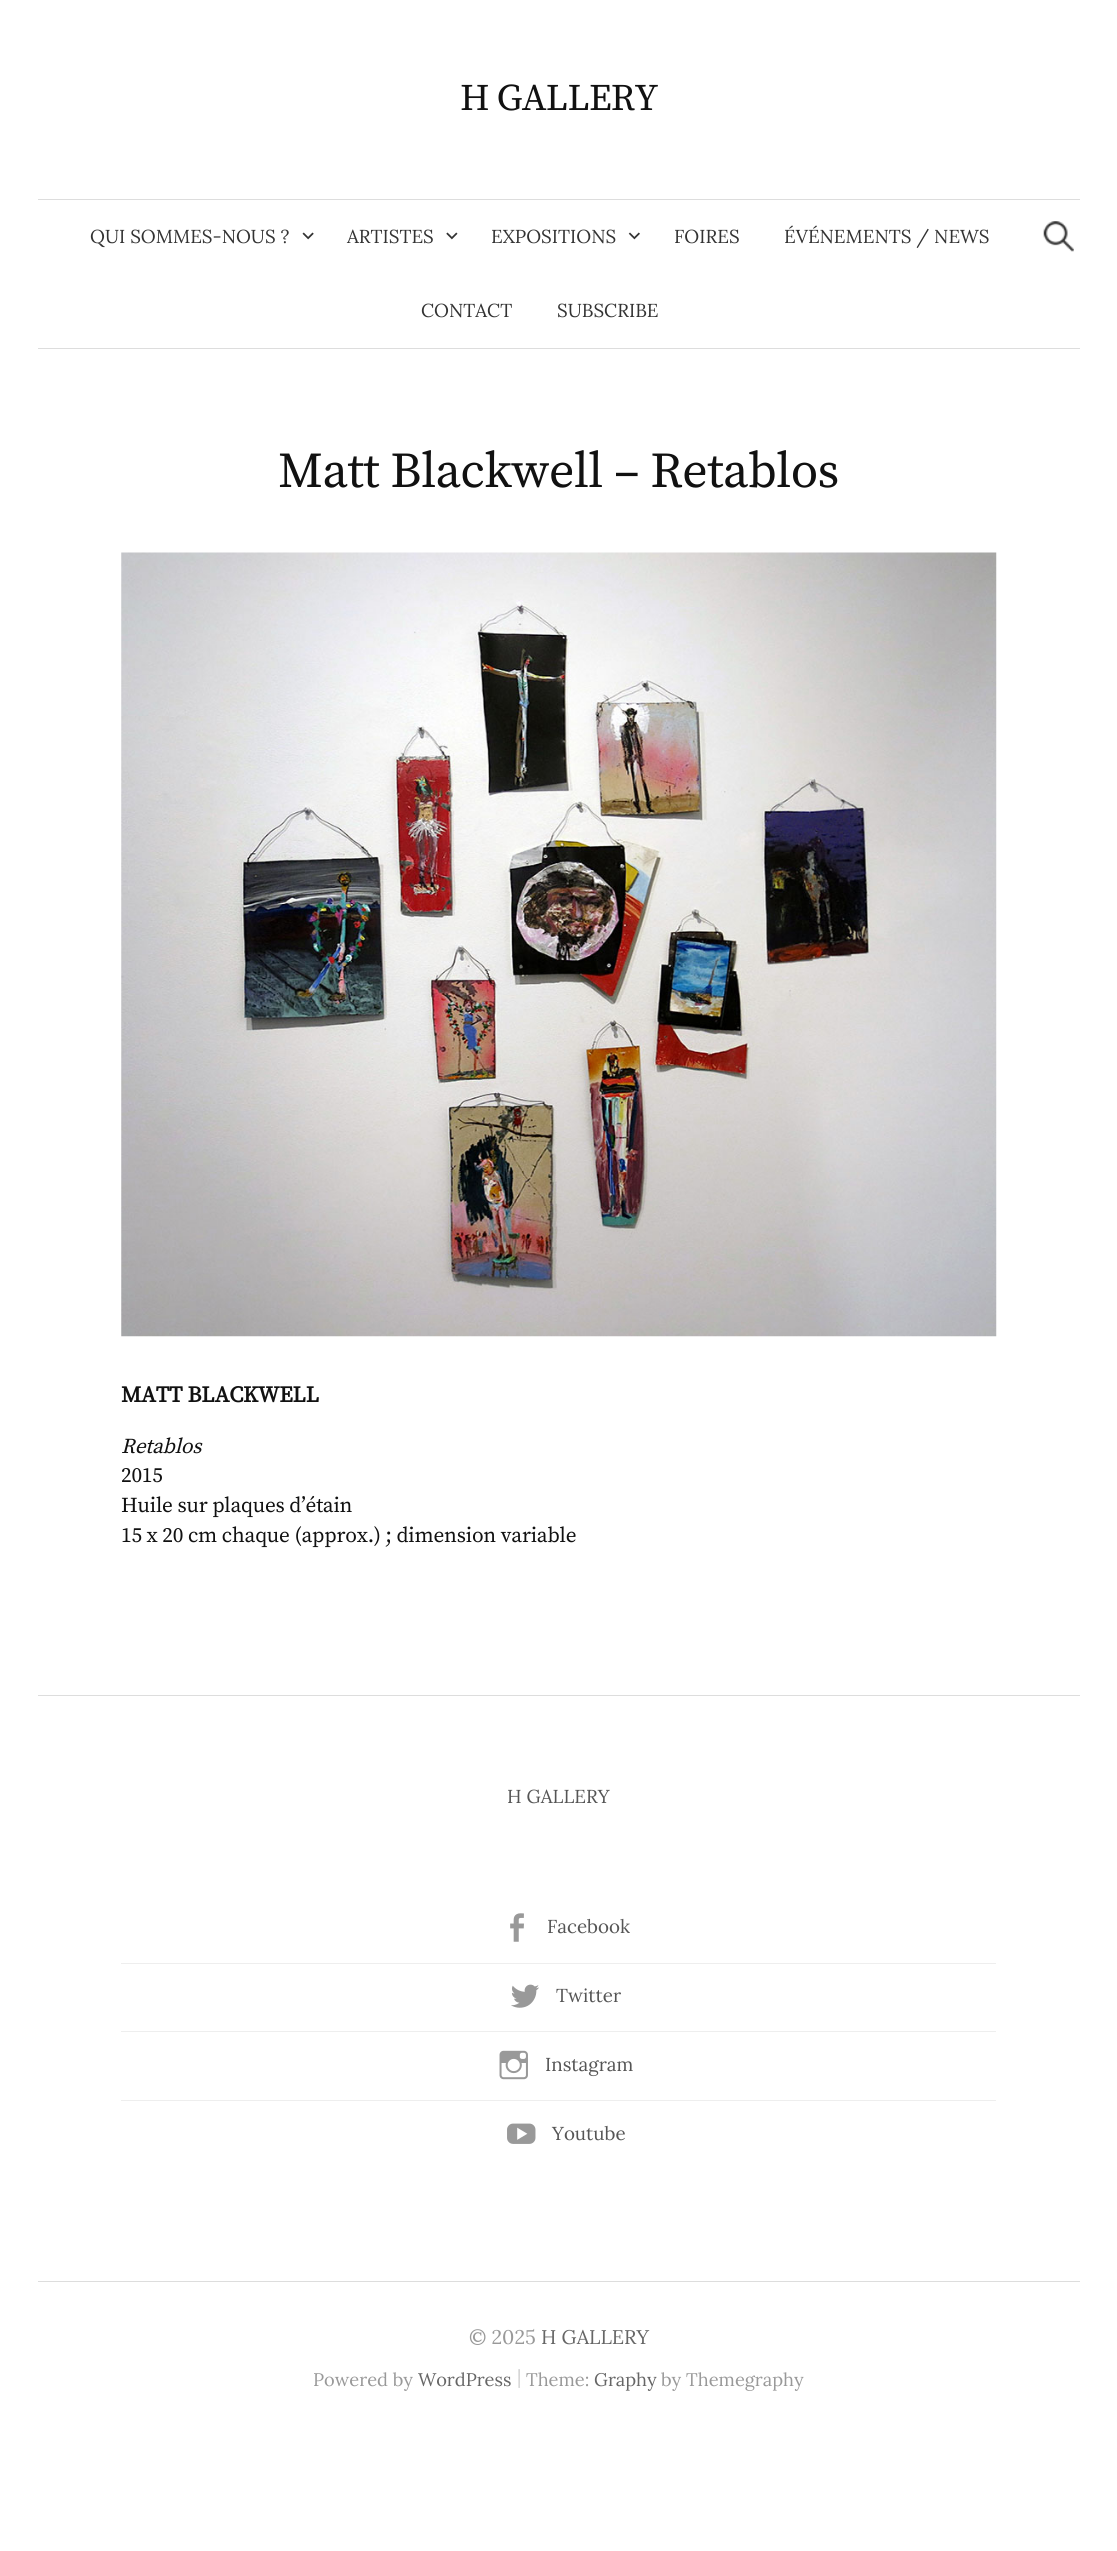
#include <cairo.h>
#include <math.h>
#include <stddef.h>

typedef struct { double x, y; const char *s; } line_t;

static void ink(cairo_t *ctx, unsigned color) {
    cairo_set_source_rgb(ctx, (color >> 16) / 255.0, (color >> 8 & 255) / 255.0, (color & 255) / 255.0);
}

static void write_spaced(cairo_t *ctx, double x, double y, const char *s, double letter, double word) {
    cairo_move_to(ctx, x, y);
    while (*s) {
        char ch[5] = {0};
        int n = 0;
        do ch[n++] = *s++; while ((*s & 0xC0) == 0x80);
        cairo_show_text(ctx, ch);
        cairo_rel_move_to(ctx, letter + word * (*ch == ' '), 0);
    }
}

static void paste(cairo_t *ctx, const char *path, double x, double y, double w, double h) {
    cairo_surface_t *image = cairo_image_surface_create_from_png(path);
    cairo_save(ctx);
    cairo_set_source_surface(ctx, image, x, y);
    cairo_rectangle(ctx, x, y, w, h);
    cairo_fill(ctx);
    cairo_restore(ctx);
    cairo_surface_destroy(image);
}

int main(void) {
    cairo_surface_t *surface = cairo_image_surface_create(CAIRO_FORMAT_RGB24, 1117, 2551);
    cairo_t *ctx = cairo_create(surface);
    cairo_font_options_t *options = cairo_font_options_create();
    cairo_font_options_set_hint_metrics(options, CAIRO_HINT_METRICS_OFF);
    cairo_font_options_set_hint_style(options, CAIRO_HINT_STYLE_NONE);
    cairo_set_font_options(ctx, options);
    cairo_set_miter_limit(ctx, 4);
    ink(ctx, 0xFFFFFF);
    cairo_paint(ctx);
    cairo_select_font_face(ctx, "Source Serif Pro", CAIRO_FONT_SLANT_NORMAL, CAIRO_FONT_WEIGHT_NORMAL);
    cairo_set_font_size(ctx, 37.5);
    ink(ctx, 0x111111);
    write_spaced(ctx, 460, 110, "H GALLERY", -0.75, 0);
    ink(ctx, 0xDDDDDD);
    cairo_rectangle(ctx, 38, 199, 1042, 1);
    cairo_fill(ctx);
    cairo_rectangle(ctx, 38, 348, 1042, 1);
    cairo_fill(ctx);
    cairo_select_font_face(ctx, "Lora", CAIRO_FONT_SLANT_NORMAL, CAIRO_FONT_WEIGHT_NORMAL);
    cairo_set_font_size(ctx, 18.75);
    ink(ctx, 0x333333);
    cairo_move_to(ctx, 90, 243);
    cairo_show_text(ctx, "QUI SOMMES-NOUS ?");
    paste(ctx, "media/1.png", 302, 232, 12, 8);
    cairo_move_to(ctx, 347, 243);
    cairo_show_text(ctx, "ARTISTES");
    paste(ctx, "media/2.png", 446, 232, 12, 8);
    cairo_move_to(ctx, 491, 243);
    cairo_show_text(ctx, "EXPOSITIONS");
    paste(ctx, "media/3.png", 628, 232, 12, 8);
    {
        static const line_t items[] = {
            {674, 243, "FOIRES"},
            {784, 243, "ÉVÉNEMENTS / NEWS"},
            {421, 317, "CONTACT"},
            {557, 317, "SUBSCRIBE"},
        };
        for (size_t i = 0; i < sizeof items / sizeof *items; i++) {
            cairo_move_to(ctx, items[i].x, items[i].y);
            cairo_show_text(ctx, items[i].s);
        }
    }
    paste(ctx, "media/4.png", 1043, 221, 31, 31);
    cairo_select_font_face(ctx, "Source Serif Pro", CAIRO_FONT_SLANT_NORMAL, CAIRO_FONT_WEIGHT_NORMAL);
    cairo_set_font_size(ctx, 50);
    ink(ctx, 0x111111);
    write_spaced(ctx, 278, 487, "Matt Blackwell – Retablos", -0.5, 0);
    paste(ctx, "media/5.png", 121, 552, 876, 785);
    cairo_select_font_face(ctx, "Source Serif Pro", CAIRO_FONT_SLANT_NORMAL, CAIRO_FONT_WEIGHT_BOLD);
    cairo_set_font_size(ctx, 22.5);
    write_spaced(ctx, 121, 1402, "MATT BLACKWELL", -0.25, 0);
    cairo_select_font_face(ctx, "Source Serif Pro", CAIRO_FONT_SLANT_ITALIC, CAIRO_FONT_WEIGHT_NORMAL);
    cairo_set_font_size(ctx, 21.25);
    write_spaced(ctx, 121, 1453, "Retablos", -0.2, 0);
    cairo_select_font_face(ctx, "Source Serif Pro", CAIRO_FONT_SLANT_NORMAL, CAIRO_FONT_WEIGHT_NORMAL);
    {
        static const line_t items[] = {
            {121, 1482, "2015"},
            {121, 1512, "Huile sur plaques d’étain"},
            {121, 1542, "15 x 20 cm chaque (approx.) ; dimension variable"},
        };
        for (size_t i = 0; i < sizeof items / sizeof *items; i++) {
            write_spaced(ctx, items[i].x, items[i].y, items[i].s, -0.2, 0);
        }
    }
    ink(ctx, 0xDDDDDD);
    cairo_rectangle(ctx, 38, 1695, 1042, 1);
    cairo_fill(ctx);
    cairo_select_font_face(ctx, "Lora", CAIRO_FONT_SLANT_NORMAL, CAIRO_FONT_WEIGHT_NORMAL);
    cairo_set_font_size(ctx, 18.75);
    ink(ctx, 0x555555);
    cairo_move_to(ctx, 507, 1803);
    cairo_show_text(ctx, "H GALLERY");
    paste(ctx, "media/6.png", 510, 1913, 14, 29);
    cairo_move_to(ctx, 547, 1933);
    cairo_show_text(ctx, "Facebook");
    ink(ctx, 0xEEEEEE);
    cairo_rectangle(ctx, 121, 1963, 875, 1);
    cairo_fill(ctx);
    paste(ctx, "media/7.png", 511, 1984, 28, 24);
    ink(ctx, 0x555555);
    cairo_move_to(ctx, 556, 2002);
    cairo_show_text(ctx, "Twitter");
    ink(ctx, 0xEEEEEE);
    cairo_rectangle(ctx, 121, 2031, 875, 1);
    cairo_fill(ctx);
    paste(ctx, "media/8.png", 499, 2050, 29, 30);
    ink(ctx, 0x555555);
    cairo_move_to(ctx, 545, 2071);
    cairo_show_text(ctx, "Instagram");
    ink(ctx, 0xEEEEEE);
    cairo_rectangle(ctx, 121, 2100, 875, 1);
    cairo_fill(ctx);
    paste(ctx, "media/9.png", 507, 2123, 29, 21);
    ink(ctx, 0x555555);
    cairo_move_to(ctx, 552, 2140);
    cairo_show_text(ctx, "Youtube");
    ink(ctx, 0xDDDDDD);
    cairo_rectangle(ctx, 38, 2281, 1042, 1);
    cairo_fill(ctx);
    cairo_set_font_size(ctx, 19.75);
    ink(ctx, 0x999999);
    cairo_move_to(ctx, 469, 2344);
    cairo_show_text(ctx, "© 2025");
    ink(ctx, 0x666666);
    cairo_move_to(ctx, 541, 2344);
    cairo_show_text(ctx, "H GALLERY");
    cairo_set_font_size(ctx, 18.25);
    ink(ctx, 0x999999);
    cairo_move_to(ctx, 313, 2386);
    cairo_show_text(ctx, "Powered by");
    ink(ctx, 0x666666);
    cairo_move_to(ctx, 418, 2386);
    cairo_show_text(ctx, "WordPress");
    ink(ctx, 0xCCCCCC);
    cairo_move_to(ctx, 517, 2383);
    cairo_show_text(ctx, "|");
    ink(ctx, 0x999999);
    cairo_move_to(ctx, 526, 2386);
    cairo_show_text(ctx, "Theme:");
    ink(ctx, 0x666666);
    cairo_move_to(ctx, 594, 2386);
    cairo_show_text(ctx, "Graphy");
    ink(ctx, 0x999999);
    cairo_move_to(ctx, 661, 2386);
    cairo_show_text(ctx, "by Themegraphy");
    cairo_surface_write_to_png(surface, "image.png");
    cairo_font_options_destroy(options);
    cairo_destroy(ctx);
    cairo_surface_destroy(surface);
    return 0;
}
